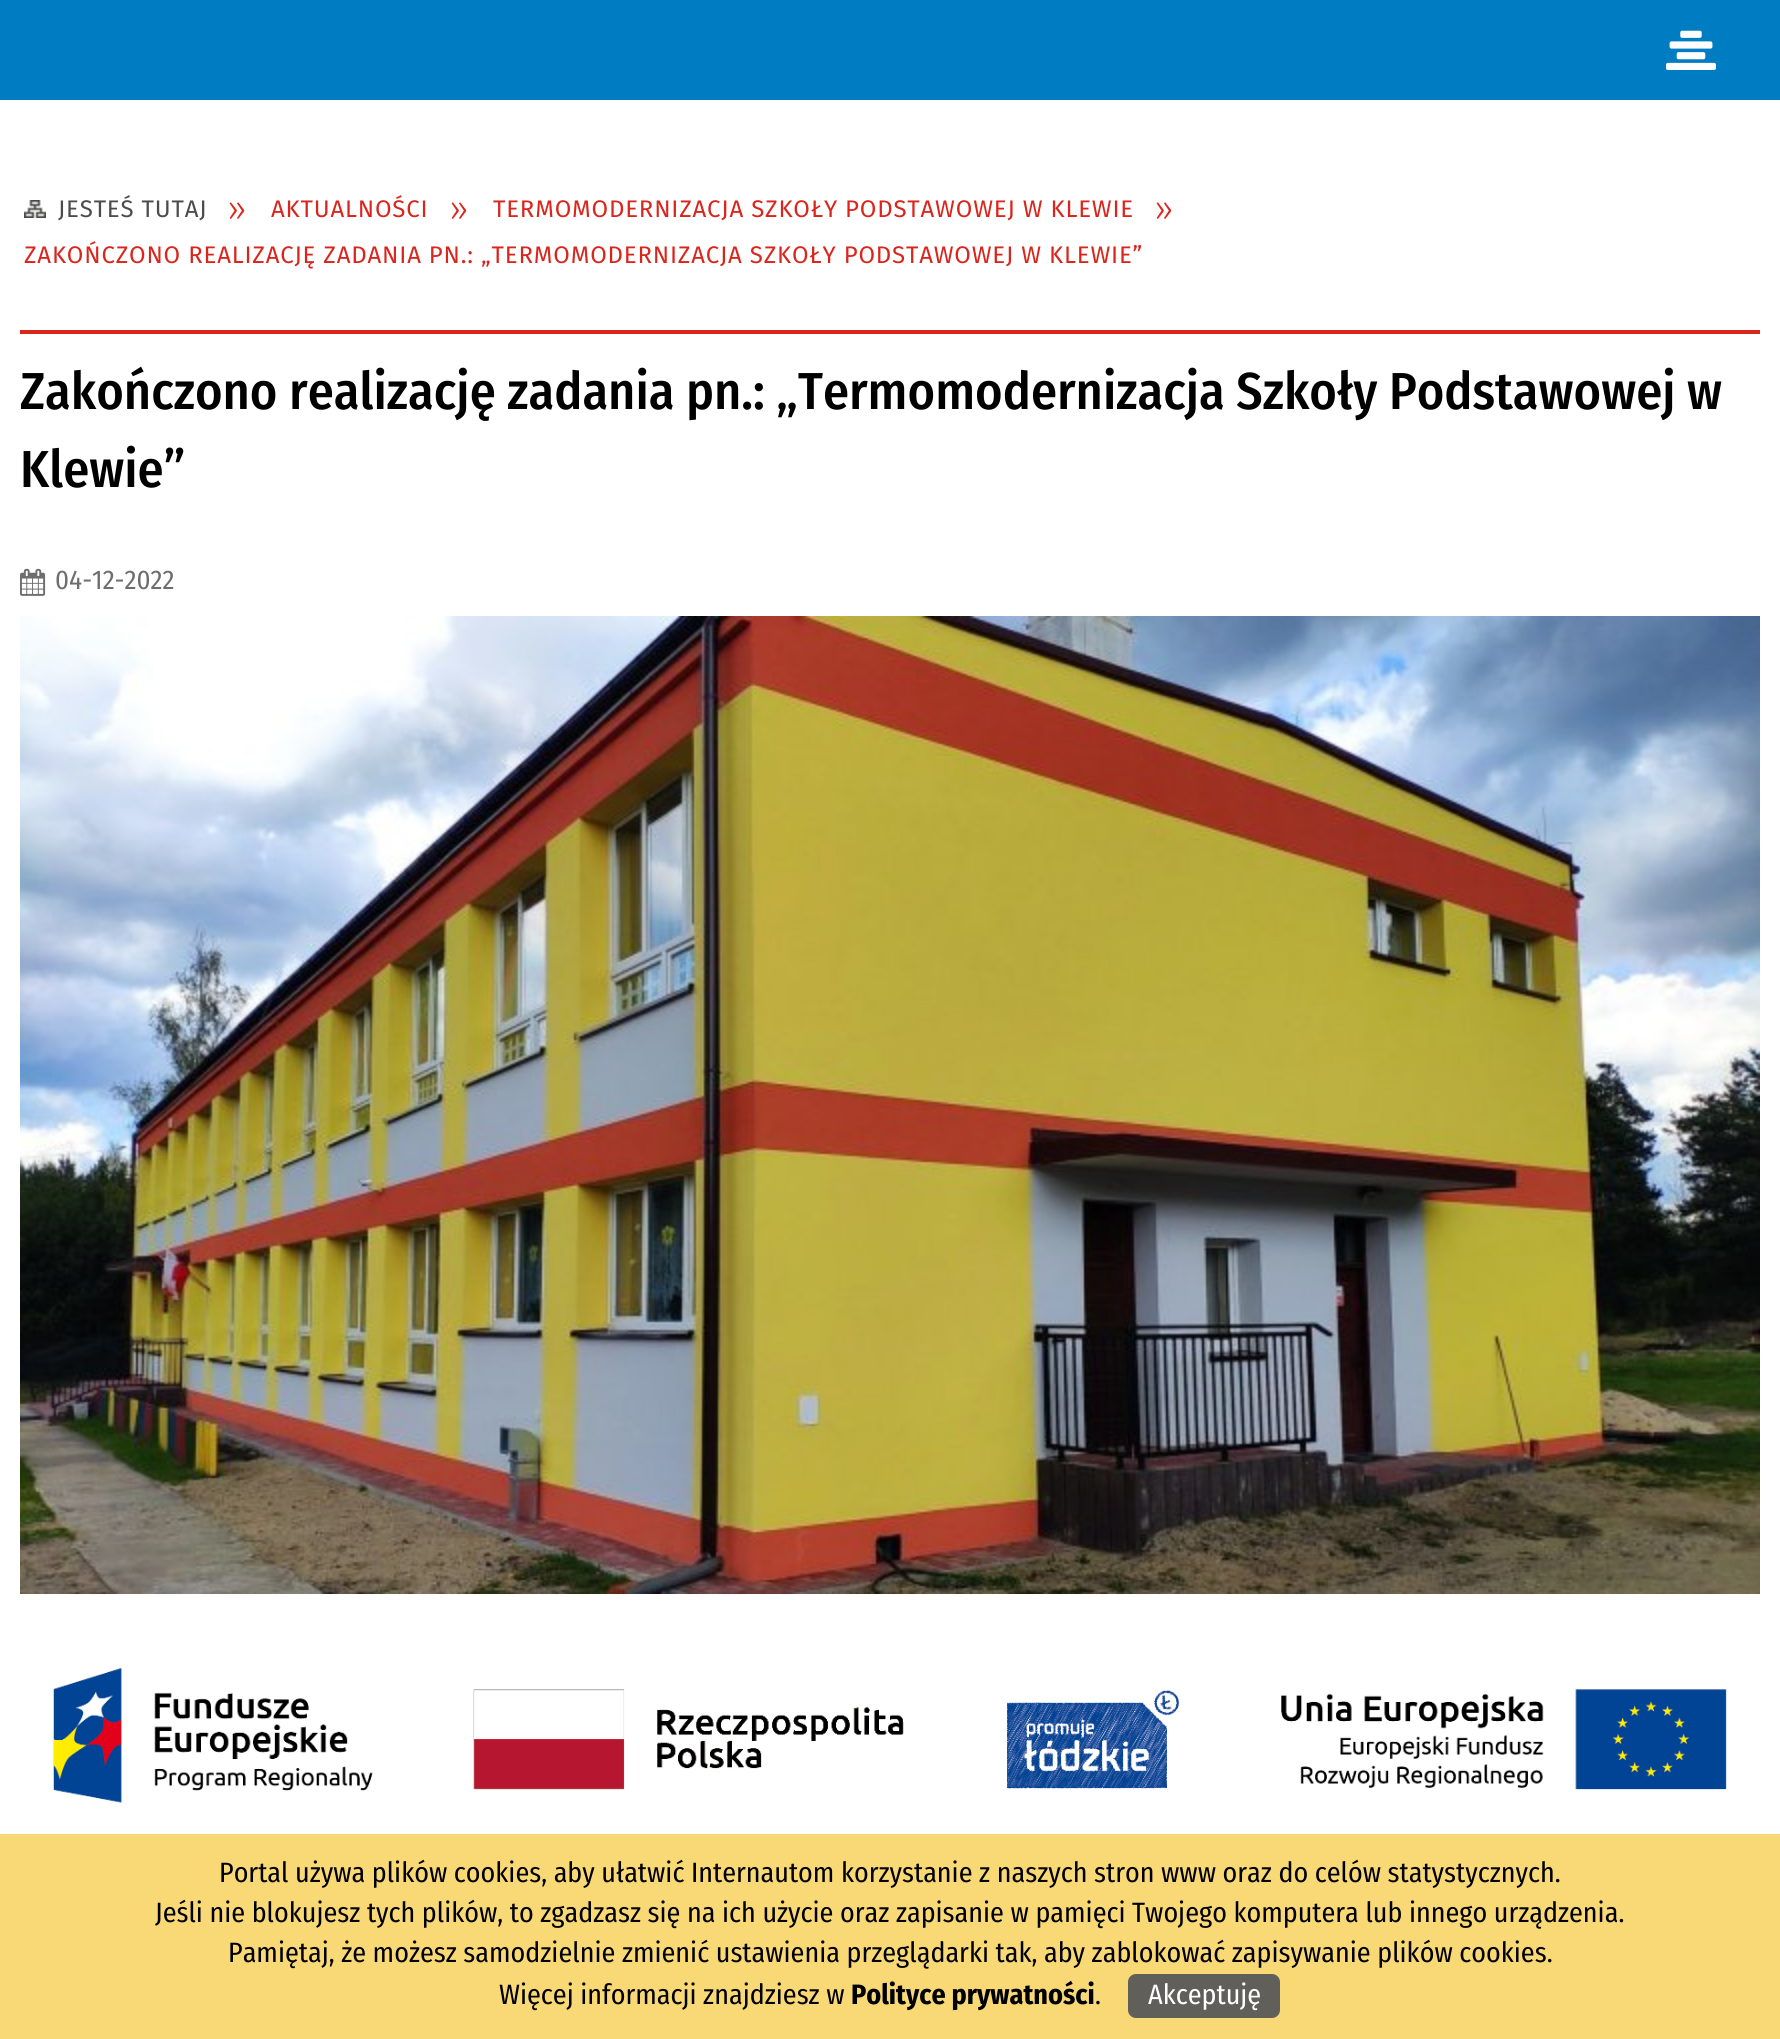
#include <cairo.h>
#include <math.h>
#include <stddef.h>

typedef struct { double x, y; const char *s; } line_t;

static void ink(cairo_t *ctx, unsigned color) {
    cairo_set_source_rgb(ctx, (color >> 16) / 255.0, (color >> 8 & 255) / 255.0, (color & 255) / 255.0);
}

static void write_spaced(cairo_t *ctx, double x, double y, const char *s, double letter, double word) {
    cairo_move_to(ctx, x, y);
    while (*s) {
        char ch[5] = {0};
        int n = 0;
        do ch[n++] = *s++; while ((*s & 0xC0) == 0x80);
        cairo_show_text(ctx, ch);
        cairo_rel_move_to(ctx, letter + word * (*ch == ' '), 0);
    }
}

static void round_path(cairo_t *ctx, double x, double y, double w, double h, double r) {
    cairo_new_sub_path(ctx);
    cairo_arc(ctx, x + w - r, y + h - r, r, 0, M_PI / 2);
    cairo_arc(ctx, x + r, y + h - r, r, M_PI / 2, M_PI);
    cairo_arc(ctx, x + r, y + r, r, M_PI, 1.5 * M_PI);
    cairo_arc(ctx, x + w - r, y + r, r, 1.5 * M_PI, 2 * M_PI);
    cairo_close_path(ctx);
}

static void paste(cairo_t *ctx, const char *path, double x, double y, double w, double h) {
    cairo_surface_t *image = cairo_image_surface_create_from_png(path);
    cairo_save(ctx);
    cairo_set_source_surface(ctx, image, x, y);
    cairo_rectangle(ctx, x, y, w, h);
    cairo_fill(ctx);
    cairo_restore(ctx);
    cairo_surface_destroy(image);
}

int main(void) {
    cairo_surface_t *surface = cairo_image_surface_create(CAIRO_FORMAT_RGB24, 1780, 2039);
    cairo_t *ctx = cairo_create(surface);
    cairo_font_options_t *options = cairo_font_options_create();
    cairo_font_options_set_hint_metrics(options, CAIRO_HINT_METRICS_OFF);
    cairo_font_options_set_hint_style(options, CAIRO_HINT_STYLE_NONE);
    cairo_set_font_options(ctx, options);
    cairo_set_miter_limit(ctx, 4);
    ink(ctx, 0xFFFFFF);
    cairo_paint(ctx);
    ink(ctx, 0x007CC2);
    cairo_rectangle(ctx, 0, 0, 1780, 100);
    cairo_fill(ctx);
    paste(ctx, "media/1.png", 1666, 30, 50, 40);
    paste(ctx, "media/2.png", 24, 200, 22, 18);
    cairo_select_font_face(ctx, "Fira Sans", CAIRO_FONT_SLANT_NORMAL, CAIRO_FONT_WEIGHT_NORMAL);
    cairo_set_font_size(ctx, 24);
    ink(ctx, 0x4C4C4C);
    write_spaced(ctx, 58, 217, "JESTEŚ TUTAJ", 0.8, 0);
    cairo_select_font_face(ctx, "Fira Sans Light", CAIRO_FONT_SLANT_NORMAL, CAIRO_FONT_WEIGHT_NORMAL);
    cairo_set_font_size(ctx, 36);
    ink(ctx, 0xDA251C);
    write_spaced(ctx, 227, 221, "»", 0.8, 0);
    cairo_select_font_face(ctx, "Fira Sans", CAIRO_FONT_SLANT_NORMAL, CAIRO_FONT_WEIGHT_NORMAL);
    cairo_set_font_size(ctx, 24);
    write_spaced(ctx, 271, 217, "AKTUALNOŚCI", 0.8, 0);
    cairo_select_font_face(ctx, "Fira Sans Light", CAIRO_FONT_SLANT_NORMAL, CAIRO_FONT_WEIGHT_NORMAL);
    cairo_set_font_size(ctx, 36);
    write_spaced(ctx, 449, 221, "»", 0.8, 0);
    cairo_select_font_face(ctx, "Fira Sans", CAIRO_FONT_SLANT_NORMAL, CAIRO_FONT_WEIGHT_NORMAL);
    cairo_set_font_size(ctx, 24);
    write_spaced(ctx, 493, 217, "TERMOMODERNIZACJA SZKOŁY PODSTAWOWEJ W KLEWIE", 0.8, 0);
    cairo_select_font_face(ctx, "Fira Sans Light", CAIRO_FONT_SLANT_NORMAL, CAIRO_FONT_WEIGHT_NORMAL);
    cairo_set_font_size(ctx, 36);
    write_spaced(ctx, 1154, 221, "»", 0.8, 0);
    cairo_select_font_face(ctx, "Fira Sans", CAIRO_FONT_SLANT_NORMAL, CAIRO_FONT_WEIGHT_NORMAL);
    cairo_set_font_size(ctx, 24);
    write_spaced(ctx, 24, 263, "ZAKOŃCZONO REALIZACJĘ ZADANIA PN.: „TERMOMODERNIZACJA SZKOŁY PODSTAWOWEJ W KLEWIE”", 0.8, 0);
    cairo_rectangle(ctx, 20, 330, 1740, 4);
    cairo_fill(ctx);
    cairo_select_font_face(ctx, "Fira Sans Condensed Medium", CAIRO_FONT_SLANT_NORMAL, CAIRO_FONT_WEIGHT_NORMAL);
    cairo_set_font_size(ctx, 52);
    ink(ctx, 0x000000);
    cairo_move_to(ctx, 20, 409);
    cairo_show_text(ctx, "Zakończono realizację zadania pn.: „Termomodernizacja Szkoły Podstawowej w");
    cairo_move_to(ctx, 20, 487);
    cairo_show_text(ctx, "Klewie”");
    paste(ctx, "media/3.png", 20, 568, 26, 28);
    cairo_select_font_face(ctx, "Fira Sans Condensed", CAIRO_FONT_SLANT_NORMAL, CAIRO_FONT_WEIGHT_NORMAL);
    cairo_set_font_size(ctx, 27);
    ink(ctx, 0x6E6E6E);
    cairo_move_to(ctx, 55, 589);
    cairo_show_text(ctx, "04-12-2022");
    paste(ctx, "media/4.png", 20, 616, 1740, 978);
    paste(ctx, "media/5.png", 53, 1667, 1674, 136);
    ink(ctx, 0xF9D976);
    cairo_rectangle(ctx, 0, 1834, 1780, 205);
    cairo_fill(ctx);
    cairo_set_font_size(ctx, 28);
    ink(ctx, 0x000000);
    {
        static const line_t items[] = {
            {219, 1882, "Portal używa plików cookies, aby ułatwić Internautom korzystanie z naszych stron www oraz do celów statystycznych."},
            {155, 1922, "Jeśli nie blokujesz tych plików, to zgadzasz się na ich użycie oraz zapisanie w pamięci Twojego komputera lub innego urządzenia."},
            {228, 1962, "Pamiętaj, że możesz samodzielnie zmienić ustawienia przeglądarki tak, aby zablokować zapisywanie plików cookies."},
            {499, 2004, "Więcej informacji znajdziesz w"},
        };
        for (size_t i = 0; i < sizeof items / sizeof *items; i++) {
            cairo_move_to(ctx, items[i].x, items[i].y);
            cairo_show_text(ctx, items[i].s);
        }
    }
    cairo_select_font_face(ctx, "Fira Sans Condensed", CAIRO_FONT_SLANT_NORMAL, CAIRO_FONT_WEIGHT_BOLD);
    cairo_move_to(ctx, 851, 2004);
    cairo_show_text(ctx, "Polityce prywatności");
    cairo_select_font_face(ctx, "Fira Sans Condensed", CAIRO_FONT_SLANT_NORMAL, CAIRO_FONT_WEIGHT_NORMAL);
    cairo_move_to(ctx, 1095, 2004);
    cairo_show_text(ctx, ".");
    ink(ctx, 0x615F5A);
    round_path(ctx, 1128, 1974, 152, 44, 8);
    cairo_fill(ctx);
    ink(ctx, 0xFFFFFF);
    cairo_move_to(ctx, 1148, 2004);
    cairo_show_text(ctx, "Akceptuję");
    cairo_surface_write_to_png(surface, "image.png");
    cairo_font_options_destroy(options);
    cairo_destroy(ctx);
    cairo_surface_destroy(surface);
    return 0;
}
